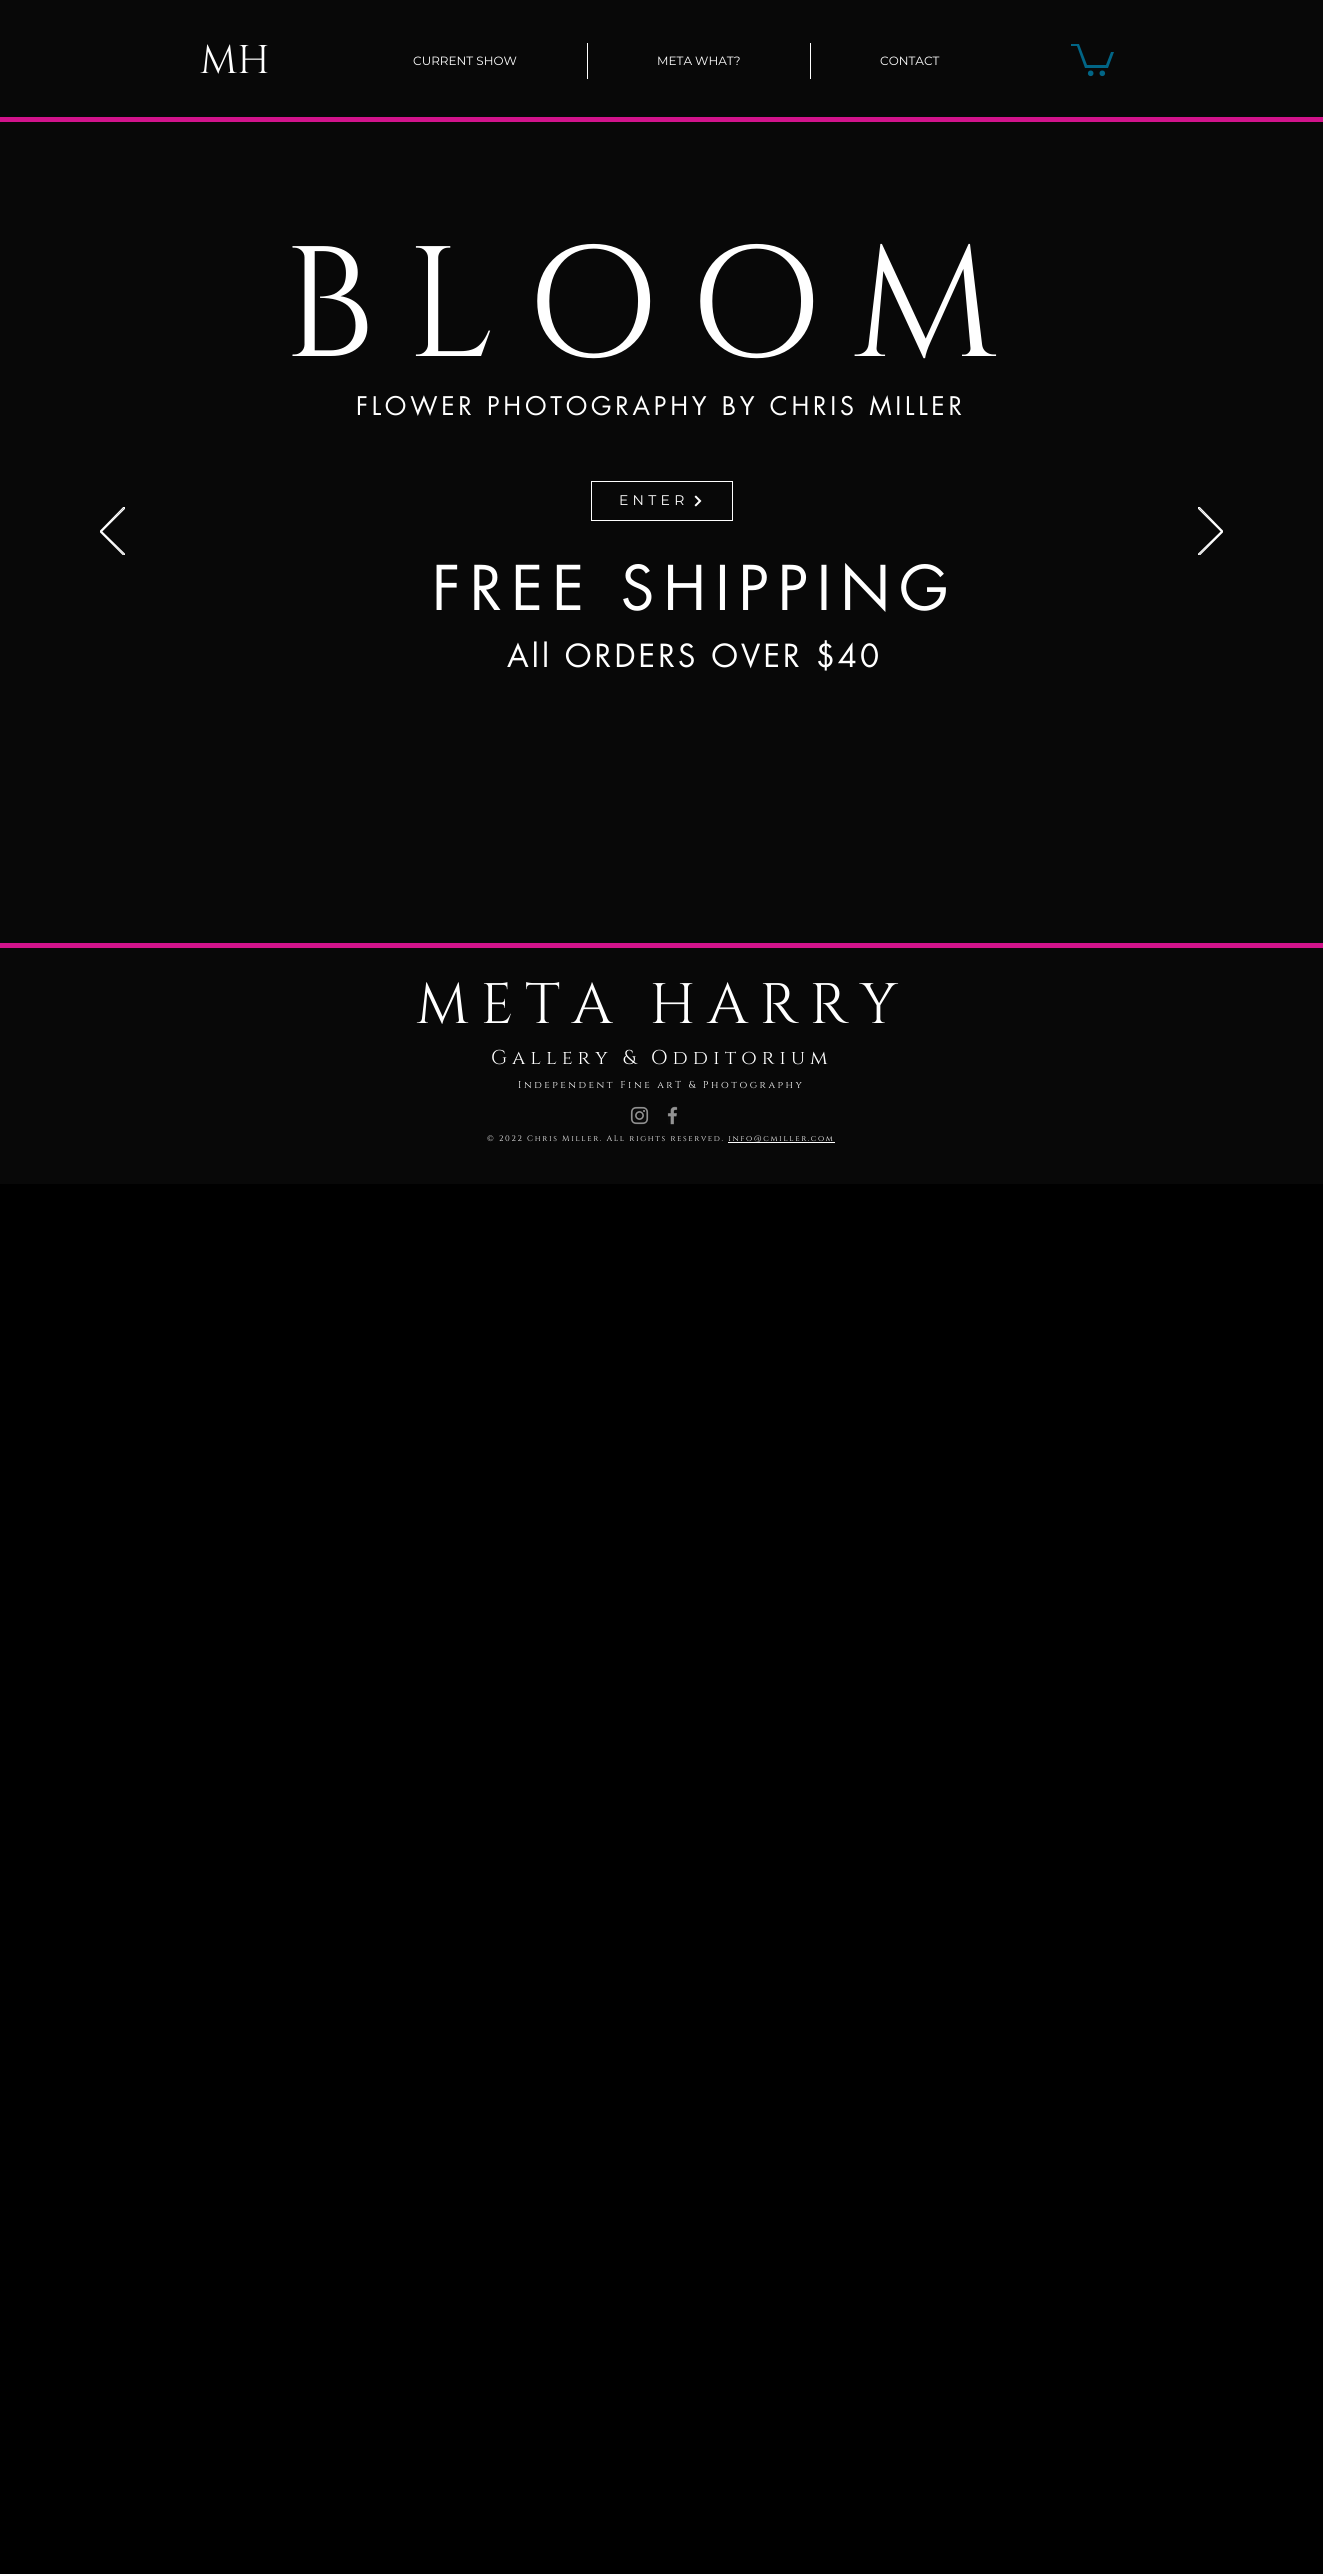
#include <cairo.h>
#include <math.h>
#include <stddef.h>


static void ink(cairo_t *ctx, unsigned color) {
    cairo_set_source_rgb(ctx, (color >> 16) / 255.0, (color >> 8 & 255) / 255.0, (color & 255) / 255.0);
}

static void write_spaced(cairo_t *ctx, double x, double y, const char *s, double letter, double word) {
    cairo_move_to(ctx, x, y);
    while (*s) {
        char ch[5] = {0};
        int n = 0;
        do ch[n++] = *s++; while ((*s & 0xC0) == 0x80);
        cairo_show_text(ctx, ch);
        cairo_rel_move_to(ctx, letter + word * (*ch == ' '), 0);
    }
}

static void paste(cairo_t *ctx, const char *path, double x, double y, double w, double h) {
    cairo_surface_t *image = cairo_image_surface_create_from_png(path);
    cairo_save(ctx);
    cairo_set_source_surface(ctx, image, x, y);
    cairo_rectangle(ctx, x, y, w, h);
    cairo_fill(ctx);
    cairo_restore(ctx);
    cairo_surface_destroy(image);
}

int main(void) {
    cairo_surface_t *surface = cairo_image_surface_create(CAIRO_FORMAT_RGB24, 1323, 2574);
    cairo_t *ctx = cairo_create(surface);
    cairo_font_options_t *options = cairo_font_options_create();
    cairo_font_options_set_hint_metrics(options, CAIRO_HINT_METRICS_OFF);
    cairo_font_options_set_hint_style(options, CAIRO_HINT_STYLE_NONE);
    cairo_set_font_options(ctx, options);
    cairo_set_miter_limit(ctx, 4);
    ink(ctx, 0x000000);
    cairo_paint(ctx);
    ink(ctx, 0x080808);
    cairo_rectangle(ctx, 0, 0, 1323, 117);
    cairo_fill(ctx);
    ink(ctx, 0xD1138B);
    cairo_rectangle(ctx, 0, 117, 1323, 5);
    cairo_fill(ctx);
    cairo_select_font_face(ctx, "Cinzel", CAIRO_FONT_SLANT_NORMAL, CAIRO_FONT_WEIGHT_NORMAL);
    cairo_set_font_size(ctx, 40);
    ink(ctx, 0xFFFFFF);
    cairo_move_to(ctx, 200, 73);
    cairo_show_text(ctx, "MH");
    cairo_select_font_face(ctx, "Montserrat", CAIRO_FONT_SLANT_NORMAL, CAIRO_FONT_WEIGHT_NORMAL);
    cairo_set_font_size(ctx, 12);
    cairo_move_to(ctx, 413, 65);
    cairo_show_text(ctx, "CURRENT SHOW");
    cairo_rectangle(ctx, 587, 43, 1, 36);
    cairo_fill(ctx);
    cairo_move_to(ctx, 657, 65);
    cairo_show_text(ctx, "META WHAT?");
    cairo_rectangle(ctx, 810, 43, 1, 36);
    cairo_fill(ctx);
    cairo_move_to(ctx, 880, 65);
    cairo_show_text(ctx, "CONTACT");
    ink(ctx, 0x016586);
    cairo_new_path(ctx);
    cairo_move_to(ctx, 1114, 52);
    cairo_line_to(ctx, 1108, 68);
    cairo_line_to(ctx, 1085, 68);
    cairo_line_to(ctx, 1077, 46);
    cairo_line_to(ctx, 1071, 46);
    cairo_line_to(ctx, 1071, 44);
    cairo_line_to(ctx, 1079, 44);
    cairo_line_to(ctx, 1087, 65);
    cairo_line_to(ctx, 1106, 65);
    cairo_line_to(ctx, 1111, 52);
    cairo_fill(ctx);
    cairo_arc(ctx, 1102.3, 73.3, 2.8, 0, 2 * M_PI);
    cairo_fill(ctx);
    cairo_arc(ctx, 1090.7, 73.3, 2.8, 0, 2 * M_PI);
    cairo_fill(ctx);
    ink(ctx, 0x080808);
    cairo_rectangle(ctx, 0, 122, 1323, 821);
    cairo_fill(ctx);
    cairo_save(ctx);
    cairo_rectangle(ctx, 100, 507, 25, 48);
    cairo_clip(ctx);
    cairo_new_path(ctx);
    cairo_move_to(ctx, 124, 555.5);
    cairo_line_to(ctx, 100, 531.5);
    cairo_line_to(ctx, 124, 507);
    cairo_line_to(ctx, 125, 508);
    cairo_line_to(ctx, 101.5, 531.5);
    cairo_line_to(ctx, 125, 554.5);
    cairo_close_path(ctx);
    ink(ctx, 0xFFFFFF);
    cairo_set_line_width(ctx, 1.2);
    cairo_stroke(ctx);
    cairo_restore(ctx);
    cairo_select_font_face(ctx, "Cinzel", CAIRO_FONT_SLANT_NORMAL, CAIRO_FONT_WEIGHT_NORMAL);
    cairo_set_font_size(ctx, 157);
    ink(ctx, 0xFFFFFF);
    write_spaced(ctx, 283, 356, "BLOOM", 31.5, 0);
    cairo_select_font_face(ctx, "futura", CAIRO_FONT_SLANT_NORMAL, CAIRO_FONT_WEIGHT_NORMAL);
    cairo_set_font_size(ctx, 25);
    write_spaced(ctx, 356, 415, "FLOWER PHOTOGRAPHY BY CHRIS MILLER", 3.75, 0);
    cairo_rectangle(ctx, 591.5, 481.5, 141, 39);
    cairo_set_line_width(ctx, 1);
    cairo_stroke(ctx);
    cairo_select_font_face(ctx, "Montserrat", CAIRO_FONT_SLANT_NORMAL, CAIRO_FONT_WEIGHT_NORMAL);
    cairo_set_font_size(ctx, 14);
    write_spaced(ctx, 619, 505, "ENTER", 4.25, 0);
    paste(ctx, "media/1.png", 694, 495, 8, 12);
    cairo_select_font_face(ctx, "futura", CAIRO_FONT_SLANT_NORMAL, CAIRO_FONT_WEIGHT_NORMAL);
    cairo_set_font_size(ctx, 60);
    write_spaced(ctx, 432, 610, "FREE SHIPPING", 9, 0);
    cairo_set_font_size(ctx, 31);
    write_spaced(ctx, 507, 667, "All ORDERS OVER $40", 3.1, 0);
    cairo_save(ctx);
    cairo_rectangle(ctx, 1198, 507, 25, 48);
    cairo_clip(ctx);
    cairo_new_path(ctx);
    cairo_move_to(ctx, 1199, 555.5);
    cairo_line_to(ctx, 1223, 531.5);
    cairo_line_to(ctx, 1199, 507);
    cairo_line_to(ctx, 1198, 508);
    cairo_line_to(ctx, 1221.5, 531.5);
    cairo_line_to(ctx, 1198, 554.5);
    cairo_close_path(ctx);
    cairo_set_line_width(ctx, 1.2);
    cairo_stroke(ctx);
    cairo_restore(ctx);
    ink(ctx, 0x080808);
    cairo_rectangle(ctx, 0, 948, 1323, 236);
    cairo_fill(ctx);
    ink(ctx, 0xD1138B);
    cairo_rectangle(ctx, 0, 943, 1323, 5);
    cairo_fill(ctx);
    cairo_select_font_face(ctx, "Cinzel", CAIRO_FONT_SLANT_NORMAL, CAIRO_FONT_WEIGHT_NORMAL);
    cairo_set_font_size(ctx, 57);
    ink(ctx, 0xFFFFFF);
    write_spaced(ctx, 416, 1023, "META HARRY", 11.5, 0);
    cairo_set_font_size(ctx, 20);
    write_spaced(ctx, 491, 1064, "Gallery & Odditorium", 5, 0);
    cairo_set_font_size(ctx, 10);
    write_spaced(ctx, 518, 1088, "Independent Fine arT & Photography", 2.5, 0);
    paste(ctx, "media/2.png", 630, 1106, 19, 19);
    paste(ctx, "media/3.png", 667, 1106, 11, 19);
    cairo_set_font_size(ctx, 8);
    write_spaced(ctx, 487, 1141, "© 2022 Chris Miller. ALl rights reserved. info@cmiller.com", 1.6, 0);
    cairo_rectangle(ctx, 728, 1142, 107, 1);
    cairo_fill(ctx);
    cairo_surface_write_to_png(surface, "image.png");
    cairo_font_options_destroy(options);
    cairo_destroy(ctx);
    cairo_surface_destroy(surface);
    return 0;
}
